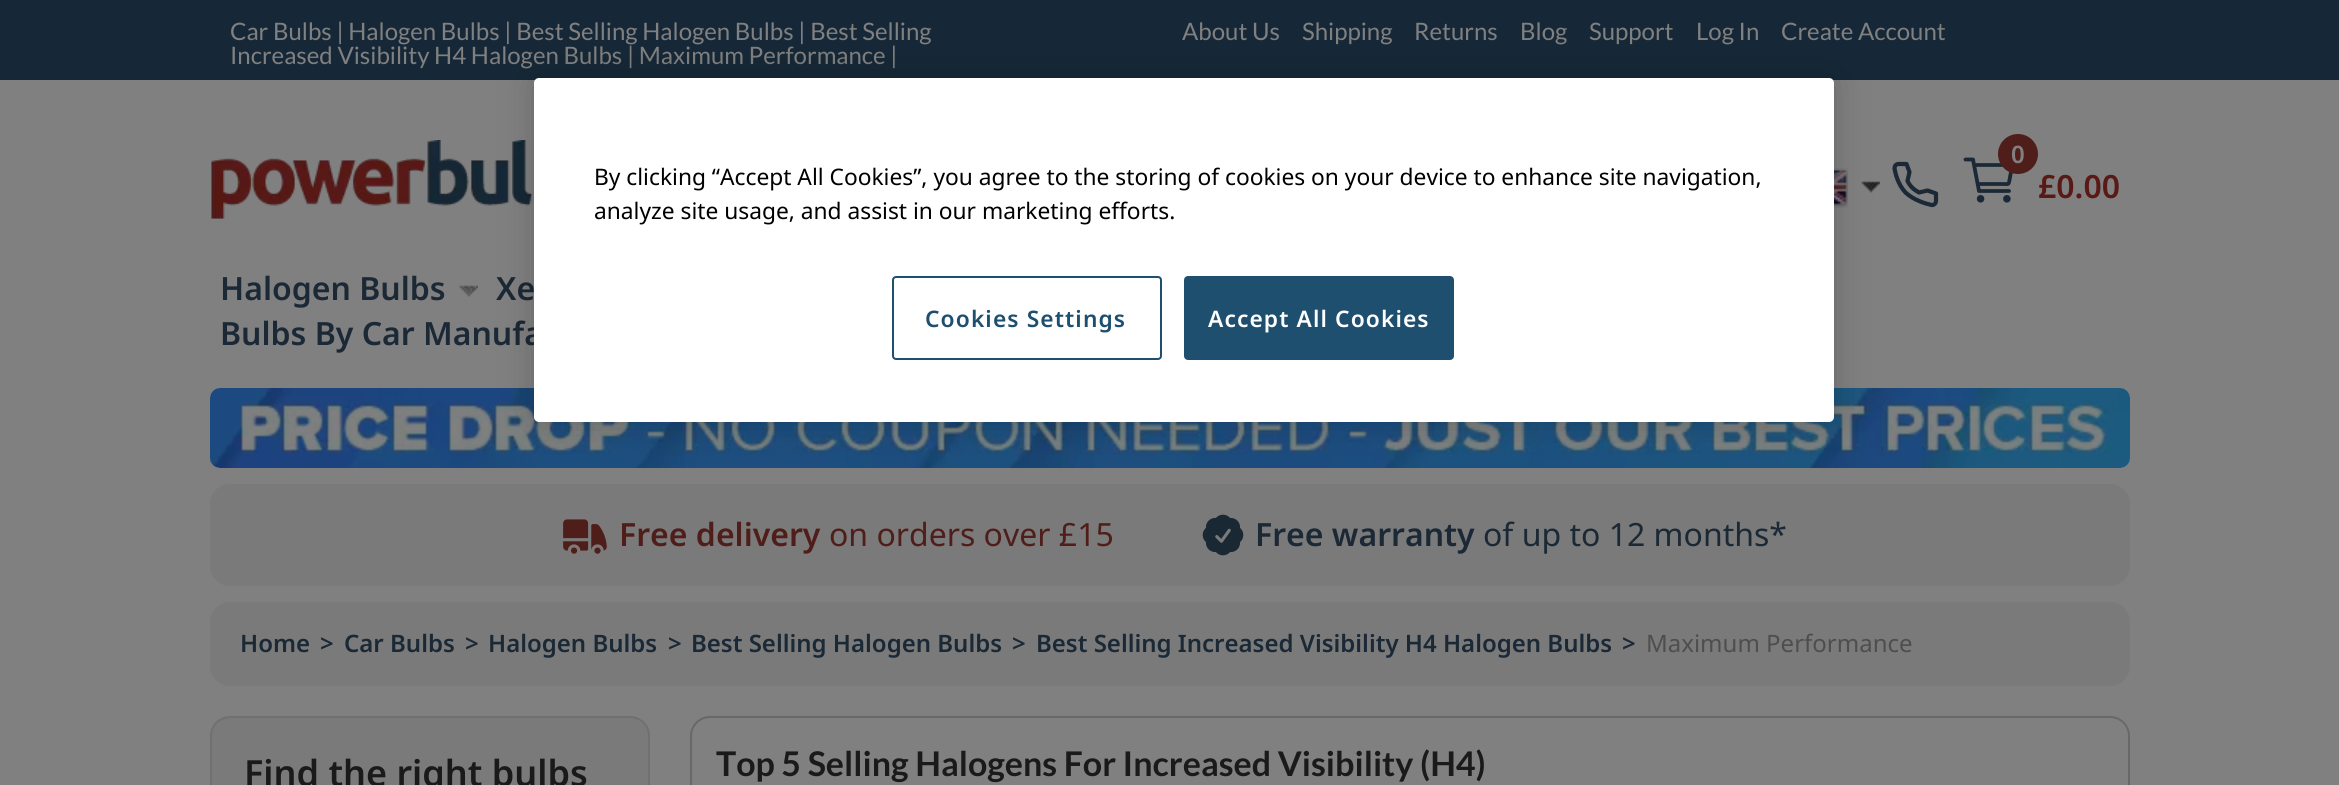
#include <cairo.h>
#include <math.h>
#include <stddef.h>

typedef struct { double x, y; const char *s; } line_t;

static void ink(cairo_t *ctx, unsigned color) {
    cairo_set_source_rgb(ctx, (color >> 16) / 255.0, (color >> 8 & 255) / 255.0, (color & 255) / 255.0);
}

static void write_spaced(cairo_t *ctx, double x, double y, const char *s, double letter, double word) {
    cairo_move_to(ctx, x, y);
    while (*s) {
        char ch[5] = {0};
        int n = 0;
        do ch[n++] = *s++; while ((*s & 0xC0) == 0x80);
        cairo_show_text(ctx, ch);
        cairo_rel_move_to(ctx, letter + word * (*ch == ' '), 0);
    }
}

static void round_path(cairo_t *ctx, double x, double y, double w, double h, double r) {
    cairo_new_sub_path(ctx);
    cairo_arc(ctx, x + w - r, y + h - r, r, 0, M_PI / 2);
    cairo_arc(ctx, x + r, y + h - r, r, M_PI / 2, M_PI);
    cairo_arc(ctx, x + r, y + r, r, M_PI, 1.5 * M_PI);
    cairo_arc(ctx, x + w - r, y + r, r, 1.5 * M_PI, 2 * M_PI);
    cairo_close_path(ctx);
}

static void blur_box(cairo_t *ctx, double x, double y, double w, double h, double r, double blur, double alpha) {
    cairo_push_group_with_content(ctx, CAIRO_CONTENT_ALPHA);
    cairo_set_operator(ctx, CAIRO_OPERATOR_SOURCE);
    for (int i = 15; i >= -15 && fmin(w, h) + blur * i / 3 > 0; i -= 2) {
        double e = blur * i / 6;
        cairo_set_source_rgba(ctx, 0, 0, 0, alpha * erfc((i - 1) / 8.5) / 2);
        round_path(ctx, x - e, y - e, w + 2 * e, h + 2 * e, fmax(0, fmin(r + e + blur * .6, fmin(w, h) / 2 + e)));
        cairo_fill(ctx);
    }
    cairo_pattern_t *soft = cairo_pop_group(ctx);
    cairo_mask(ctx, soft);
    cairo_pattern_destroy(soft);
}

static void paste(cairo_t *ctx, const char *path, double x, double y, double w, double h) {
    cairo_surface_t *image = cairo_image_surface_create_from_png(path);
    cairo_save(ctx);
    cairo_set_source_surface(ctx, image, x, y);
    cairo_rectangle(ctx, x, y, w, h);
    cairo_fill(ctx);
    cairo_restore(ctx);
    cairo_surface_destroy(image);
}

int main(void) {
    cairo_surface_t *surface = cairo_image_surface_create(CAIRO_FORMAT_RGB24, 2339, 785);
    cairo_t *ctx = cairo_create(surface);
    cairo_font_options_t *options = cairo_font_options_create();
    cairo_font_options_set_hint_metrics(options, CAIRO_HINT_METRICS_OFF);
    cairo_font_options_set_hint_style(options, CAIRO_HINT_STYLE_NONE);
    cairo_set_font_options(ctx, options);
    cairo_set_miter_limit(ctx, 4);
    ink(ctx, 0x808080);
    cairo_paint(ctx);
    ink(ctx, 0x162837);
    cairo_rectangle(ctx, 0, 0, 2339, 80);
    cairo_fill(ctx);
    cairo_select_font_face(ctx, "Lato", CAIRO_FONT_SLANT_NORMAL, CAIRO_FONT_WEIGHT_NORMAL);
    cairo_set_font_size(ctx, 24);
    ink(ctx, 0x808080);
    {
        static const line_t items[] = {
            {230, 40, "Car Bulbs | Halogen Bulbs | Best Selling Halogen Bulbs | Best Selling"},
            {230, 64, "Increased Visibility H4 Halogen Bulbs | Maximum Performance |"},
            {1182, 40, "About Us"},
            {1302, 40, "Shipping"},
            {1414, 40, "Returns"},
            {1520, 40, "Blog"},
            {1589, 40, "Support"},
            {1696, 40, "Log In"},
            {1781, 40, "Create Account"},
        };
        for (size_t i = 0; i < sizeof items / sizeof *items; i++) {
            cairo_move_to(ctx, items[i].x, items[i].y);
            cairo_show_text(ctx, items[i].s);
        }
    }
    paste(ctx, "media/1.png", 211, 140, 323, 79);
    paste(ctx, "media/2.png", 1834, 168, 14, 40);
    paste(ctx, "media/3.png", 1861, 181, 19, 12);
    cairo_new_path(ctx);
    cairo_move_to(ctx, 1927.5, 190.5);
    cairo_line_to(ctx, 1919, 192.5);
    cairo_curve_to(ctx, 1913.5, 189.5, 1910, 186, 1907.5, 181);
    cairo_line_to(ctx, 1909.5, 172);
    cairo_line_to(ctx, 1906.5, 164);
    cairo_line_to(ctx, 1898.5, 164);
    cairo_curve_to(ctx, 1896, 164, 1894.5, 166, 1894.5, 168.5);
    cairo_curve_to(ctx, 1895.5, 174, 1898, 184.5, 1905.5, 192.5);
    cairo_curve_to(ctx, 1913.5, 200, 1925, 203.5, 1931.5, 205);
    cairo_curve_to(ctx, 1933.5, 205.5, 1936, 203.5, 1936, 201);
    cairo_line_to(ctx, 1936, 193.5);
    cairo_close_path(ctx);
    ink(ctx, 0x1B2835);
    cairo_set_line_width(ctx, 4.2);
    cairo_set_line_cap(ctx, CAIRO_LINE_CAP_ROUND);
    cairo_set_line_join(ctx, CAIRO_LINE_JOIN_ROUND);
    cairo_stroke(ctx);
    cairo_new_path(ctx);
    cairo_move_to(ctx, 1965.5, 159.5);
    cairo_line_to(ctx, 1973, 159.5);
    cairo_line_to(ctx, 1979, 191);
    cairo_line_to(ctx, 2009, 191);
    cairo_move_to(ctx, 1979, 184);
    cairo_line_to(ctx, 2003, 184);
    cairo_curve_to(ctx, 2009, 184, 2008.5, 185, 2009.5, 180);
    cairo_line_to(ctx, 2010.5, 174.5);
    cairo_curve_to(ctx, 2013, 163.5, 2015, 165, 2005.5, 165);
    cairo_line_to(ctx, 1975, 165);
    cairo_set_line_width(ctx, 3.8);
    cairo_stroke(ctx);
    ink(ctx, 0x501E1A);
    cairo_arc(ctx, 2018, 154, 20, 0, 2 * M_PI);
    cairo_fill(ctx);
    cairo_select_font_face(ctx, "Noto Sans SemiBold", CAIRO_FONT_SLANT_NORMAL, CAIRO_FONT_WEIGHT_NORMAL);
    ink(ctx, 0x808080);
    cairo_move_to(ctx, 2011, 163);
    cairo_show_text(ctx, "0");
    cairo_new_path(ctx);
    cairo_arc(ctx, 1980.6, 198.8, 1.9, 0, 2 * M_PI);
    ink(ctx, 0x1B2835);
    cairo_set_line_cap(ctx, CAIRO_LINE_CAP_BUTT);
    cairo_set_line_join(ctx, CAIRO_LINE_JOIN_MITER);
    cairo_stroke(ctx);
    cairo_arc(ctx, 2006.9, 198.8, 1.9, 0, 2 * M_PI);
    cairo_stroke(ctx);
    cairo_set_font_size(ctx, 32);
    ink(ctx, 0x591916);
    cairo_move_to(ctx, 2038, 198);
    cairo_show_text(ctx, "£0.00");
    ink(ctx, 0x1B2835);
    cairo_move_to(ctx, 220, 300);
    cairo_show_text(ctx, "Halogen Bulbs");
    paste(ctx, "media/4.png", 459, 285, 19, 12);
    cairo_move_to(ctx, 496, 300);
    cairo_show_text(ctx, "Xe");
    cairo_move_to(ctx, 220, 345);
    cairo_show_text(ctx, "Bulbs By Car Manufa");
    paste(ctx, "media/5.png", 210, 388, 1920, 80);
    ink(ctx, 0x7A7A7A);
    round_path(ctx, 210, 484, 1920, 102, 20);
    cairo_fill(ctx);
    paste(ctx, "media/6.png", 563, 519, 44, 35);
    ink(ctx, 0x501E1A);
    cairo_move_to(ctx, 619, 546);
    cairo_show_text(ctx, "Free delivery");
    cairo_select_font_face(ctx, "Noto Sans", CAIRO_FONT_SLANT_NORMAL, CAIRO_FONT_WEIGHT_NORMAL);
    cairo_move_to(ctx, 829, 546);
    cairo_show_text(ctx, "on orders over £15");
    paste(ctx, "media/7.png", 1202, 514, 42, 42);
    cairo_select_font_face(ctx, "Noto Sans SemiBold", CAIRO_FONT_SLANT_NORMAL, CAIRO_FONT_WEIGHT_NORMAL);
    ink(ctx, 0x1B2835);
    cairo_move_to(ctx, 1255, 546);
    cairo_show_text(ctx, "Free warranty");
    cairo_select_font_face(ctx, "Noto Sans", CAIRO_FONT_SLANT_NORMAL, CAIRO_FONT_WEIGHT_NORMAL);
    cairo_move_to(ctx, 1483, 546);
    cairo_show_text(ctx, "of up to 12 months*");
    ink(ctx, 0x7A7A7A);
    round_path(ctx, 210, 602, 1920, 84, 20);
    cairo_fill(ctx);
    cairo_select_font_face(ctx, "Noto Sans SemiBold", CAIRO_FONT_SLANT_NORMAL, CAIRO_FONT_WEIGHT_NORMAL);
    cairo_set_font_size(ctx, 24);
    ink(ctx, 0x1B2835);
    {
        static const line_t items[] = {
            {240, 652, "Home"},
            {320, 652, ">"},
            {344, 652, "Car Bulbs"},
            {465, 652, ">"},
            {488, 652, "Halogen Bulbs"},
            {668, 652, ">"},
            {691, 652, "Best Selling Halogen Bulbs"},
            {1012, 652, ">"},
            {1036, 652, "Best Selling Increased Visibility H4 Halogen Bulbs"},
            {1622, 652, ">"},
        };
        for (size_t i = 0; i < sizeof items / sizeof *items; i++) {
            cairo_move_to(ctx, items[i].x, items[i].y);
            cairo_show_text(ctx, items[i].s);
        }
    }
    cairo_select_font_face(ctx, "Noto Sans", CAIRO_FONT_SLANT_NORMAL, CAIRO_FONT_WEIGHT_NORMAL);
    ink(ctx, 0x4E4E4E);
    cairo_move_to(ctx, 1646, 652);
    cairo_show_text(ctx, "Maximum Performance");
    ink(ctx, 0x7A7A7A);
    round_path(ctx, 211, 717, 438, 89, 19);
    cairo_fill_preserve(ctx);
    ink(ctx, 0x707070);
    cairo_set_line_width(ctx, 2);
    cairo_stroke(ctx);
    cairo_select_font_face(ctx, "Noto Sans SemiBold", CAIRO_FONT_SLANT_NORMAL, CAIRO_FONT_WEIGHT_NORMAL);
    cairo_set_font_size(ctx, 36);
    ink(ctx, 0x1A1A1A);
    cairo_move_to(ctx, 244, 786);
    cairo_show_text(ctx, "Find the right bulbs");
    round_path(ctx, 691, 717, 1438, 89, 19);
    ink(ctx, 0x686868);
    cairo_stroke(ctx);
    cairo_select_font_face(ctx, "Lato", CAIRO_FONT_SLANT_NORMAL, CAIRO_FONT_WEIGHT_BOLD);
    cairo_set_font_size(ctx, 34);
    ink(ctx, 0x1A1A1A);
    cairo_move_to(ctx, 716, 776);
    cairo_show_text(ctx, "Top 5 Selling Halogens For Increased Visibility (H4)");
    ink(ctx, 0x000000);
    blur_box(ctx, 534, 78, 1300, 344, 5, 18, 0.2);
    ink(ctx, 0xFFFFFF);
    round_path(ctx, 534, 78, 1300, 344, 5);
    cairo_fill(ctx);
    cairo_select_font_face(ctx, "Noto Sans", CAIRO_FONT_SLANT_NORMAL, CAIRO_FONT_WEIGHT_NORMAL);
    cairo_set_font_size(ctx, 22.75);
    ink(ctx, 0x000000);
    cairo_move_to(ctx, 594, 185);
    cairo_show_text(ctx, "By clicking “Accept All Cookies”, you agree to the storing of cookies on your device to enhance site navigation,");
    cairo_move_to(ctx, 594, 219);
    cairo_show_text(ctx, "analyze site usage, and assist in our marketing efforts.");
    round_path(ctx, 893, 277, 268, 82, 3);
    ink(ctx, 0x1E4F6F);
    cairo_stroke(ctx);
    cairo_select_font_face(ctx, "Noto Sans SemiBold", CAIRO_FONT_SLANT_NORMAL, CAIRO_FONT_WEIGHT_NORMAL);
    write_spaced(ctx, 925, 327, "Cookies Settings", 1.1, 0);
    round_path(ctx, 1185, 277, 268, 82, 3);
    cairo_fill_preserve(ctx);
    cairo_stroke(ctx);
    ink(ctx, 0xFFFFFF);
    write_spaced(ctx, 1208, 327, "Accept All Cookies", 1.1, 0);
    cairo_surface_write_to_png(surface, "image.png");
    cairo_font_options_destroy(options);
    cairo_destroy(ctx);
    cairo_surface_destroy(surface);
    return 0;
}
